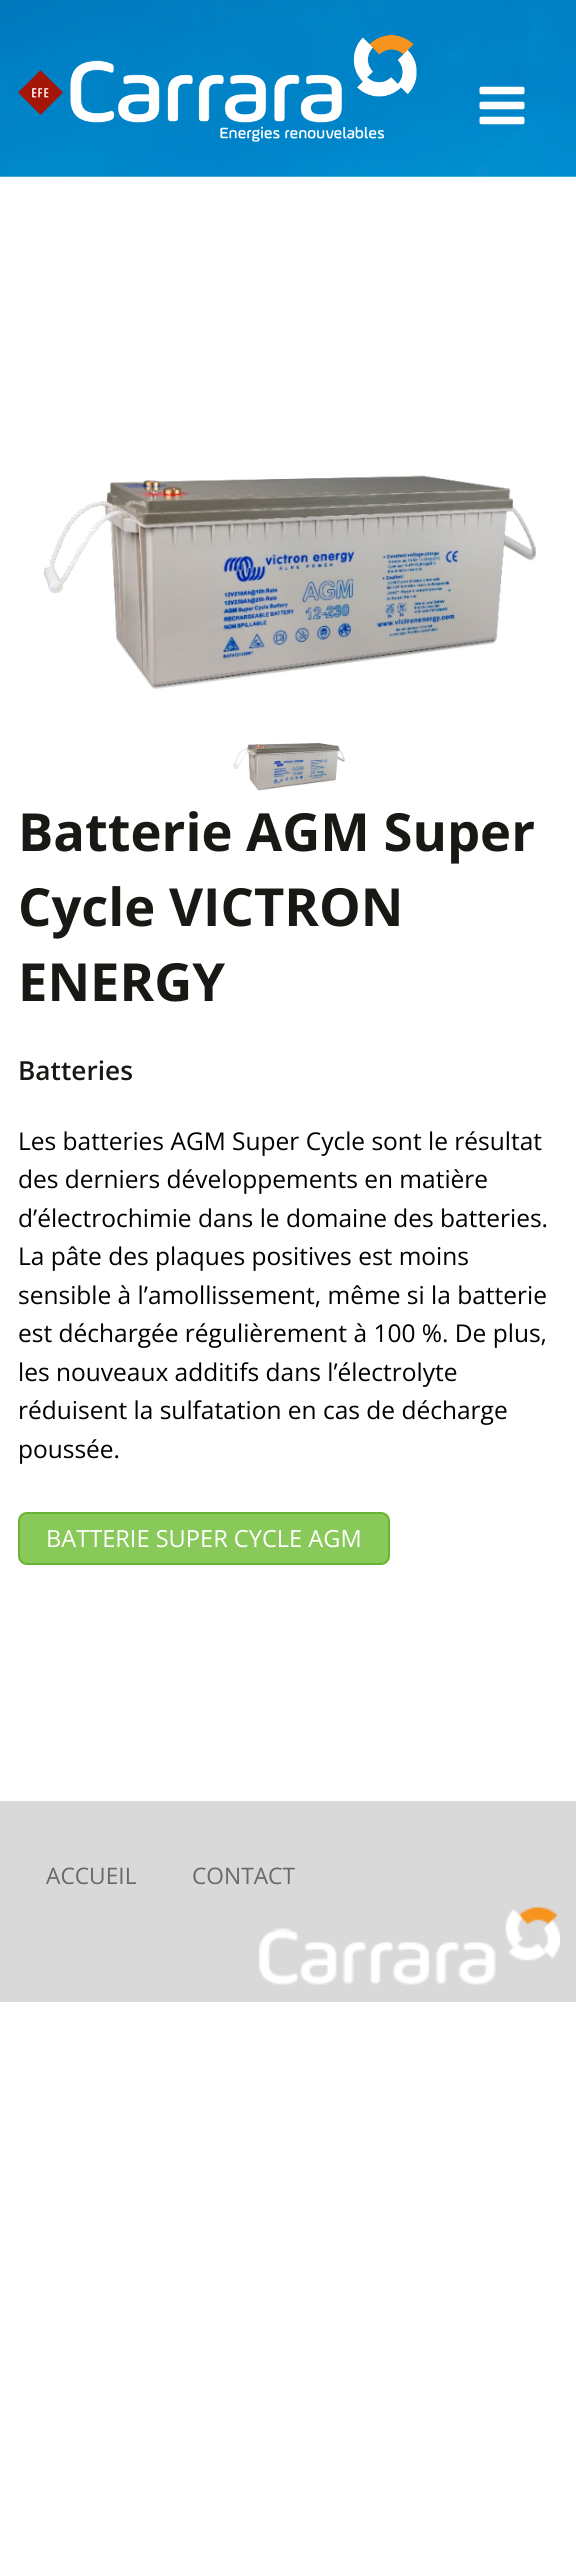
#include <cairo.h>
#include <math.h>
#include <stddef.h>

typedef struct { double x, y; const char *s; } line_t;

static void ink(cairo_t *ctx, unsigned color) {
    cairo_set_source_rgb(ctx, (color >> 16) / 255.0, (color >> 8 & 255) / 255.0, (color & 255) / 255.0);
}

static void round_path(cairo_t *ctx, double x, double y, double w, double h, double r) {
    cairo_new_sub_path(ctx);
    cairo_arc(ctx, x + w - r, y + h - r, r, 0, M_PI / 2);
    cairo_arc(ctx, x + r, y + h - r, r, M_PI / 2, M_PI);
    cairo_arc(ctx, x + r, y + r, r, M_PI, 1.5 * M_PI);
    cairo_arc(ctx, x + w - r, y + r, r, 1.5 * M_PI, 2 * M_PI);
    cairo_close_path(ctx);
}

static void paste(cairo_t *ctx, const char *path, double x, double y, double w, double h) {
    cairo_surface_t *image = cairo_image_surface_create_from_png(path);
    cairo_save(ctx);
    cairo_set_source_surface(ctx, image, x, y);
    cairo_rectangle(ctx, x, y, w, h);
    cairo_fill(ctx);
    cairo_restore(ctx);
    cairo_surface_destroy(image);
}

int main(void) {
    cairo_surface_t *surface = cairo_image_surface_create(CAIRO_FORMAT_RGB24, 576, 2572);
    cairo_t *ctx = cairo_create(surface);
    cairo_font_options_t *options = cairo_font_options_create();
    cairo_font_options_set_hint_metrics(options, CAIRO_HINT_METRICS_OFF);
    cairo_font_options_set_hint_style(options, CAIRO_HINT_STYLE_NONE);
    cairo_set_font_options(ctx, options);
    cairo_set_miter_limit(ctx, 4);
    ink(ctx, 0xFFFFFF);
    cairo_paint(ctx);
    paste(ctx, "media/2.png", 0, 0, 576, 177);
    paste(ctx, "media/1.png", 479, 86, 46, 39);
    paste(ctx, "media/3.png", 17, 35, 400, 107);
    paste(ctx, "media/4.png", 43, 475, 493, 214);
    paste(ctx, "media/5.png", 233, 742, 112, 49);
    cairo_select_font_face(ctx, "Open Sans", CAIRO_FONT_SLANT_NORMAL, CAIRO_FONT_WEIGHT_BOLD);
    cairo_set_font_size(ctx, 52.5);
    ink(ctx, 0x191815);
    {
        static const line_t items[] = {
            {18, 851, "Batterie AGM Super"},
            {18, 926, "Cycle VICTRON"},
            {18, 1001, "ENERGY"},
        };
        for (size_t i = 0; i < sizeof items / sizeof *items; i++) {
            cairo_move_to(ctx, items[i].x, items[i].y);
            cairo_show_text(ctx, items[i].s);
        }
    }
    cairo_select_font_face(ctx, "Open Sans SemiBold", CAIRO_FONT_SLANT_NORMAL, CAIRO_FONT_WEIGHT_NORMAL);
    cairo_set_font_size(ctx, 26.25);
    cairo_move_to(ctx, 18, 1080);
    cairo_show_text(ctx, "Batteries");
    cairo_select_font_face(ctx, "Open Sans", CAIRO_FONT_SLANT_NORMAL, CAIRO_FONT_WEIGHT_NORMAL);
    cairo_set_font_size(ctx, 24.5);
    ink(ctx, 0x000000);
    {
        static const line_t items[] = {
            {18, 1150, "Les batteries AGM Super Cycle sont le résultat"},
            {18, 1188, "des derniers développements en matière"},
            {18, 1227, "d’électrochimie dans le domaine des batteries."},
            {18, 1265, "La pâte des plaques positives est moins"},
            {18, 1304, "sensible à l’amollissement, même si la batterie"},
            {18, 1342, "est déchargée régulièrement à 100 %. De plus,"},
            {18, 1381, "les nouveaux additifs dans l’électrolyte"},
            {18, 1419, "réduisent la sulfatation en cas de décharge"},
            {18, 1458, "poussée."},
        };
        for (size_t i = 0; i < sizeof items / sizeof *items; i++) {
            cairo_move_to(ctx, items[i].x, items[i].y);
            cairo_show_text(ctx, items[i].s);
        }
    }
    ink(ctx, 0x89C959);
    round_path(ctx, 19, 1513, 370, 51, 8);
    cairo_fill_preserve(ctx);
    ink(ctx, 0x67B333);
    cairo_stroke(ctx);
    cairo_set_font_size(ctx, 23.6);
    ink(ctx, 0xFFFFFF);
    cairo_move_to(ctx, 46, 1547);
    cairo_show_text(ctx, "BATTERIE SUPER CYCLE AGM");
    ink(ctx, 0xD9D9D9);
    cairo_rectangle(ctx, 0, 1801, 576, 201);
    cairo_fill(ctx);
    cairo_set_font_size(ctx, 22.75);
    ink(ctx, 0x696969);
    cairo_move_to(ctx, 46, 1884);
    cairo_show_text(ctx, "ACCUEIL");
    cairo_move_to(ctx, 192, 1884);
    cairo_show_text(ctx, "CONTACT");
    paste(ctx, "media/6.png", 259, 1907, 301, 78);
    cairo_surface_write_to_png(surface, "image.png");
    cairo_font_options_destroy(options);
    cairo_destroy(ctx);
    cairo_surface_destroy(surface);
    return 0;
}
